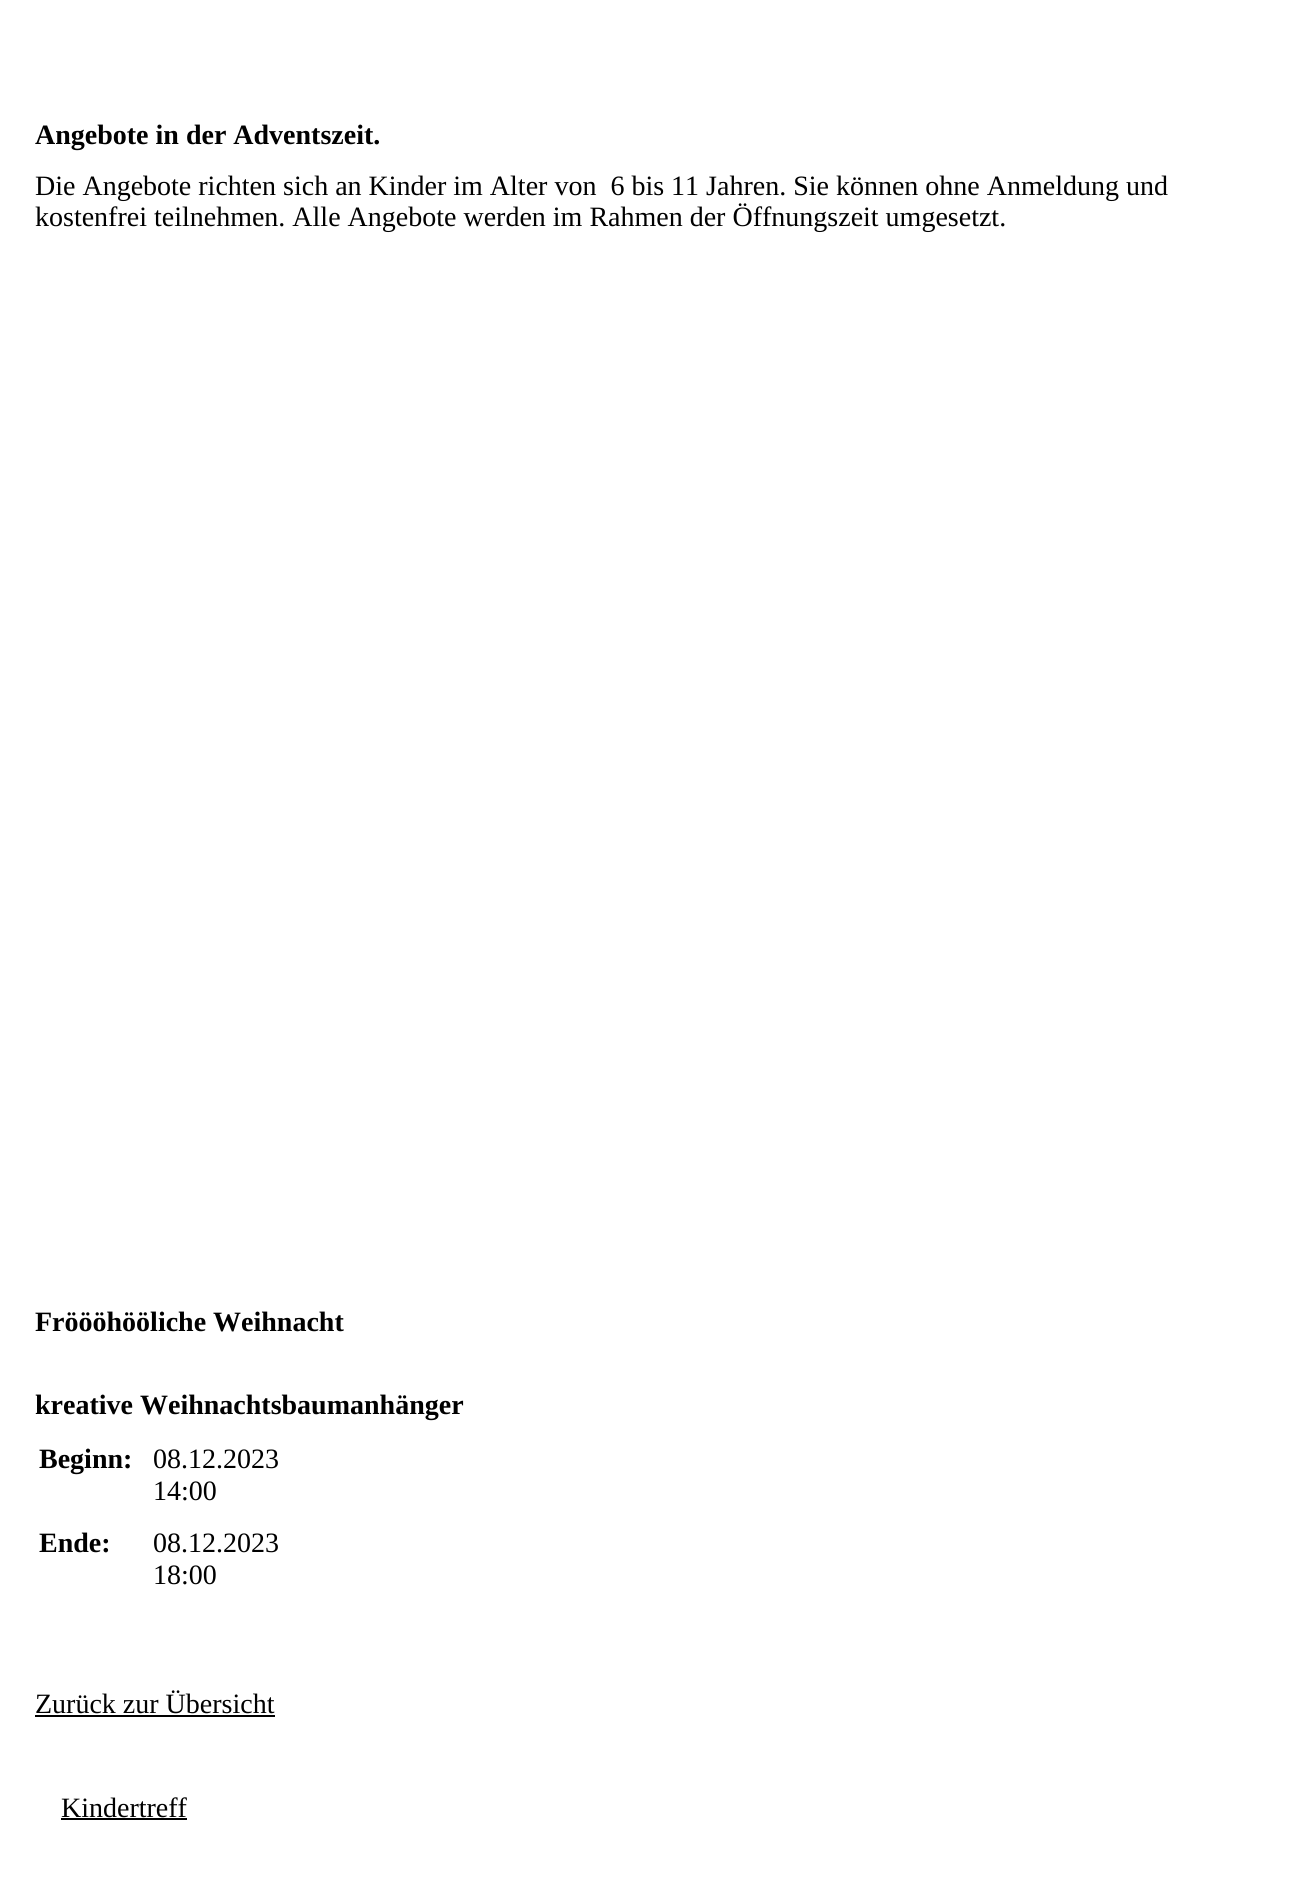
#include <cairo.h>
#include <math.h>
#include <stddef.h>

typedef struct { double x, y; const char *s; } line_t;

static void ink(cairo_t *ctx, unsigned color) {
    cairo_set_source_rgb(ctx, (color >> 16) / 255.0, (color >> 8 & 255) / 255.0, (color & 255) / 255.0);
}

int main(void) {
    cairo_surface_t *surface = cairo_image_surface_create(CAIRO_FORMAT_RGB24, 1311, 1898);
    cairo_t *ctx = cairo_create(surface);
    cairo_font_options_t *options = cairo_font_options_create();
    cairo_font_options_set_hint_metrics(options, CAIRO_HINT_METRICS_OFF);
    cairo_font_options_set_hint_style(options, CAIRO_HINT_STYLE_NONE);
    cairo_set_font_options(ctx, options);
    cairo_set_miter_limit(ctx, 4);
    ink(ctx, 0xFFFFFF);
    cairo_paint(ctx);
    cairo_select_font_face(ctx, "Liberation Serif", CAIRO_FONT_SLANT_NORMAL, CAIRO_FONT_WEIGHT_BOLD);
    cairo_set_font_size(ctx, 28);
    ink(ctx, 0x000000);
    cairo_move_to(ctx, 35, 144);
    cairo_show_text(ctx, "Angebote in der Adventszeit.");
    cairo_select_font_face(ctx, "Liberation Serif", CAIRO_FONT_SLANT_NORMAL, CAIRO_FONT_WEIGHT_NORMAL);
    cairo_move_to(ctx, 35, 195);
    cairo_show_text(ctx, "Die Angebote richten sich an Kinder im Alter von  6 bis 11 Jahren. Sie können ohne Anmeldung und");
    cairo_move_to(ctx, 35, 226);
    cairo_show_text(ctx, "kostenfrei teilnehmen. Alle Angebote werden im Rahmen der Öffnungszeit umgesetzt.");
    cairo_select_font_face(ctx, "Liberation Serif", CAIRO_FONT_SLANT_NORMAL, CAIRO_FONT_WEIGHT_BOLD);
    {
        static const line_t items[] = {
            {35, 1331, "Fröööhööliche Weihnacht"},
            {35, 1414, "kreative Weihnachtsbaumanhänger"},
            {39, 1468, "Beginn:"},
        };
        for (size_t i = 0; i < sizeof items / sizeof *items; i++) {
            cairo_move_to(ctx, items[i].x, items[i].y);
            cairo_show_text(ctx, items[i].s);
        }
    }
    cairo_select_font_face(ctx, "Liberation Serif", CAIRO_FONT_SLANT_NORMAL, CAIRO_FONT_WEIGHT_NORMAL);
    cairo_move_to(ctx, 153, 1468);
    cairo_show_text(ctx, "08.12.2023");
    cairo_move_to(ctx, 153, 1500);
    cairo_show_text(ctx, "14:00");
    cairo_select_font_face(ctx, "Liberation Serif", CAIRO_FONT_SLANT_NORMAL, CAIRO_FONT_WEIGHT_BOLD);
    cairo_move_to(ctx, 39, 1552);
    cairo_show_text(ctx, "Ende:");
    cairo_select_font_face(ctx, "Liberation Serif", CAIRO_FONT_SLANT_NORMAL, CAIRO_FONT_WEIGHT_NORMAL);
    {
        static const line_t items[] = {
            {153, 1552, "08.12.2023"},
            {153, 1584, "18:00"},
            {35, 1713, "Zurück zur Übersicht"},
        };
        for (size_t i = 0; i < sizeof items / sizeof *items; i++) {
            cairo_move_to(ctx, items[i].x, items[i].y);
            cairo_show_text(ctx, items[i].s);
        }
    }
    cairo_rectangle(ctx, 35, 1715, 240, 2);
    cairo_fill(ctx);
    cairo_move_to(ctx, 61, 1817);
    cairo_show_text(ctx, "Kindertreff");
    cairo_rectangle(ctx, 61, 1818, 126, 2);
    cairo_fill(ctx);
    cairo_surface_write_to_png(surface, "image.png");
    cairo_font_options_destroy(options);
    cairo_destroy(ctx);
    cairo_surface_destroy(surface);
    return 0;
}
